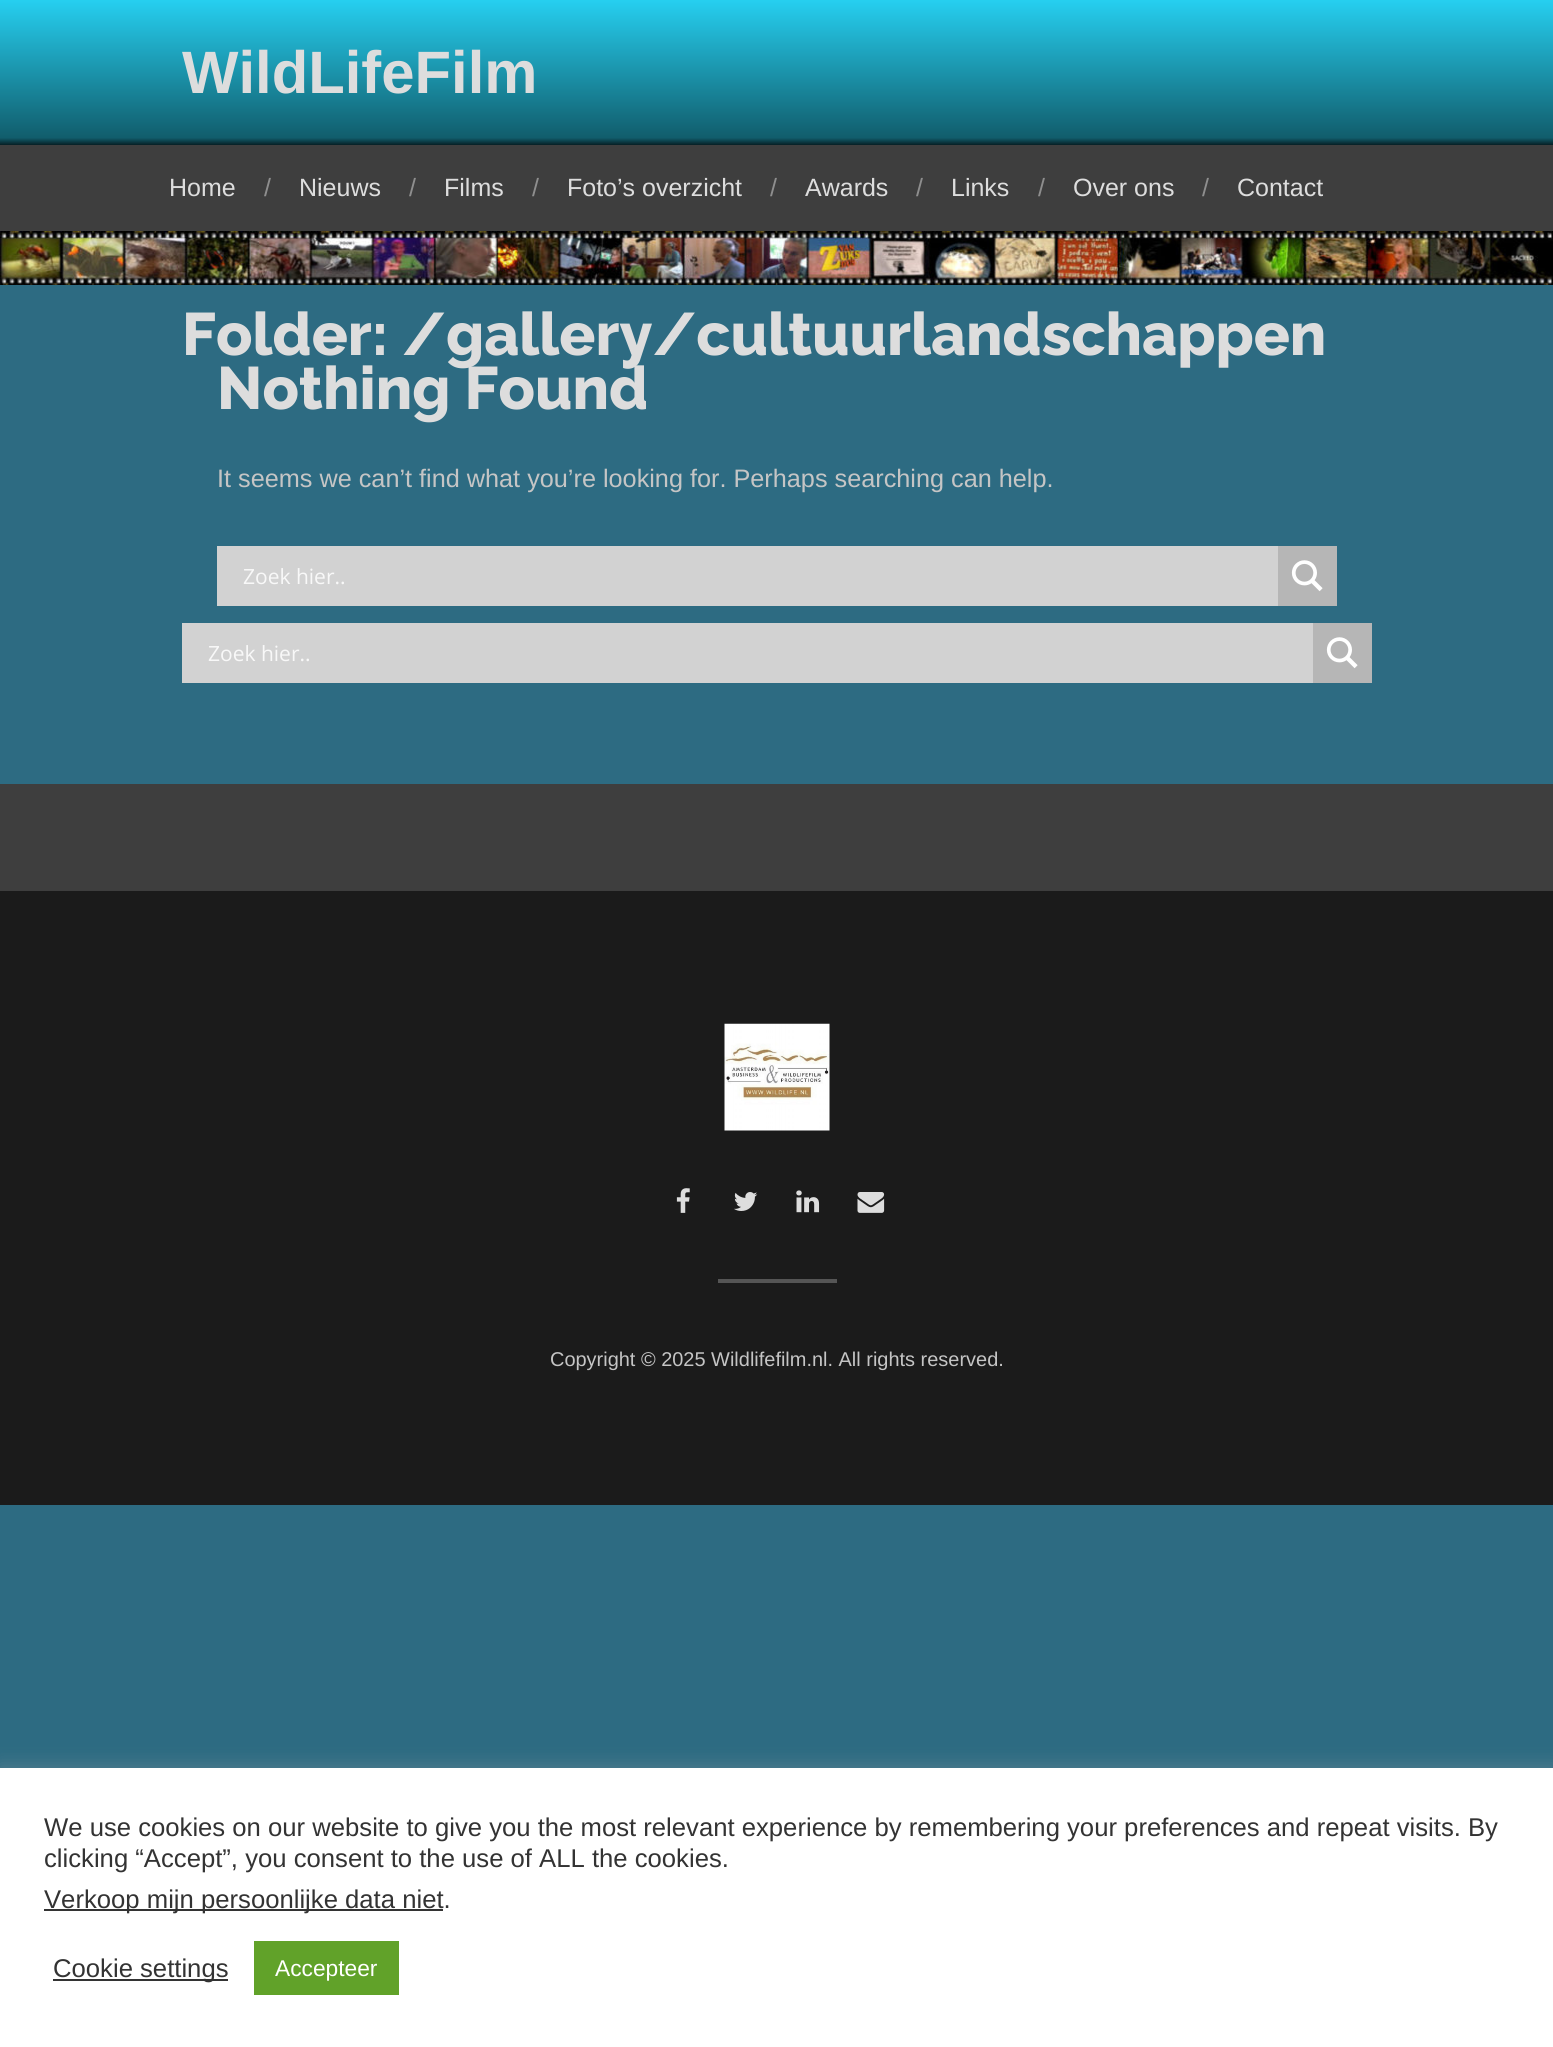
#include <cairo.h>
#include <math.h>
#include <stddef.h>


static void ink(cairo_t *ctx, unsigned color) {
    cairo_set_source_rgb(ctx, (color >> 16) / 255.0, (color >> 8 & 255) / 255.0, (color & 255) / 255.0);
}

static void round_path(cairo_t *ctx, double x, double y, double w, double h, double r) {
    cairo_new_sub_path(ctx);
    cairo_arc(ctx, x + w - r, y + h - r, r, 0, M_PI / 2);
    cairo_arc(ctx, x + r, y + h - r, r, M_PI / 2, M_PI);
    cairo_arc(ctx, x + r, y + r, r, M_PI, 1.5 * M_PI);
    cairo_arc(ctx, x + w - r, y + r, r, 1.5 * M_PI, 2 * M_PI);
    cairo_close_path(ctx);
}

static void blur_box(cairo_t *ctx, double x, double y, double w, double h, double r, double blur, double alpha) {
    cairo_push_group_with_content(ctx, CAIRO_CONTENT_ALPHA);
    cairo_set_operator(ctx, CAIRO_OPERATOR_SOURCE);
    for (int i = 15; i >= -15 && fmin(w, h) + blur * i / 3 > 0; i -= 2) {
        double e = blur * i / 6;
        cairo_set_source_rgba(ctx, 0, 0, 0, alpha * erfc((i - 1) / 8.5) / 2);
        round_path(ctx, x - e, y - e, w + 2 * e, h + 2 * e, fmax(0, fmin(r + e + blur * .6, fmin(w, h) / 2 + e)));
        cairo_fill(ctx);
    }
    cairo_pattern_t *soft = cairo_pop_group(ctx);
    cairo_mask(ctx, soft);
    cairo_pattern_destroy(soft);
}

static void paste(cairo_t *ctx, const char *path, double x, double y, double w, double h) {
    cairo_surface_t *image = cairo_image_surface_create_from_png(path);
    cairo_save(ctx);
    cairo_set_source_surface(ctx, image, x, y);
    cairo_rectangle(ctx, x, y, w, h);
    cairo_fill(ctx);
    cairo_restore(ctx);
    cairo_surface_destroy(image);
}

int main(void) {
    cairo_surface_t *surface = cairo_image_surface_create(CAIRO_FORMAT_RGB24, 1553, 2047);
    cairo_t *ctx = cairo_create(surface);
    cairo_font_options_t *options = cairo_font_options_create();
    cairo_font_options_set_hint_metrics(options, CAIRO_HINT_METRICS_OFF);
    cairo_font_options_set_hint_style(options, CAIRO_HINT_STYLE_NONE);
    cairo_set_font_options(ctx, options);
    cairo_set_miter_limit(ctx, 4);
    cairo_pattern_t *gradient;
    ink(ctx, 0x2D6B82);
    cairo_paint(ctx);
    gradient = cairo_pattern_create_linear(777, 0, 777, 145);
    cairo_pattern_add_color_stop_rgba(gradient, 0, 0.149, 0.812, 0.941, 1);
    cairo_pattern_add_color_stop_rgba(gradient, 0.95, 0.067, 0.365, 0.424, 1);
    cairo_pattern_add_color_stop_rgba(gradient, 1, 0.024, 0.122, 0.141, 1);
    cairo_set_source(ctx, gradient);
    cairo_pattern_destroy(gradient);
    cairo_rectangle(ctx, 0, 0, 1553, 145);
    cairo_fill(ctx);
    cairo_select_font_face(ctx, "Liberation Sans", CAIRO_FONT_SLANT_NORMAL, CAIRO_FONT_WEIGHT_BOLD);
    cairo_set_font_size(ctx, 59.8);
    ink(ctx, 0xDDDDDD);
    cairo_move_to(ctx, 182, 93);
    cairo_show_text(ctx, "WildLifeFilm");
    ink(ctx, 0x3E3E3E);
    cairo_rectangle(ctx, 0, 145, 1553, 86);
    cairo_fill(ctx);
    cairo_select_font_face(ctx, "Liberation Sans", CAIRO_FONT_SLANT_NORMAL, CAIRO_FONT_WEIGHT_NORMAL);
    cairo_set_font_size(ctx, 25);
    ink(ctx, 0xDDDDDD);
    cairo_move_to(ctx, 169, 196);
    cairo_show_text(ctx, "Home");
    ink(ctx, 0x8E8E8E);
    cairo_move_to(ctx, 264, 196);
    cairo_show_text(ctx, "/");
    ink(ctx, 0xDDDDDD);
    cairo_move_to(ctx, 299, 196);
    cairo_show_text(ctx, "Nieuws");
    ink(ctx, 0x8E8E8E);
    cairo_move_to(ctx, 409, 196);
    cairo_show_text(ctx, "/");
    ink(ctx, 0xDDDDDD);
    cairo_move_to(ctx, 444, 196);
    cairo_show_text(ctx, "Films");
    ink(ctx, 0x8E8E8E);
    cairo_move_to(ctx, 532, 196);
    cairo_show_text(ctx, "/");
    ink(ctx, 0xDDDDDD);
    cairo_move_to(ctx, 567, 196);
    cairo_show_text(ctx, "Foto’s overzicht");
    ink(ctx, 0x8E8E8E);
    cairo_move_to(ctx, 770, 196);
    cairo_show_text(ctx, "/");
    ink(ctx, 0xDDDDDD);
    cairo_move_to(ctx, 805, 196);
    cairo_show_text(ctx, "Awards");
    ink(ctx, 0x8E8E8E);
    cairo_move_to(ctx, 916, 196);
    cairo_show_text(ctx, "/");
    ink(ctx, 0xDDDDDD);
    cairo_move_to(ctx, 951, 196);
    cairo_show_text(ctx, "Links");
    ink(ctx, 0x8E8E8E);
    cairo_move_to(ctx, 1038, 196);
    cairo_show_text(ctx, "/");
    ink(ctx, 0xDDDDDD);
    cairo_move_to(ctx, 1073, 196);
    cairo_show_text(ctx, "Over ons");
    ink(ctx, 0x8E8E8E);
    cairo_move_to(ctx, 1202, 196);
    cairo_show_text(ctx, "/");
    ink(ctx, 0xDDDDDD);
    cairo_move_to(ctx, 1237, 196);
    cairo_show_text(ctx, "Contact");
    paste(ctx, "media/1.png", 0, 231, 1553, 54);
    cairo_select_font_face(ctx, "Raleway ExtraBold", CAIRO_FONT_SLANT_NORMAL, CAIRO_FONT_WEIGHT_NORMAL);
    cairo_set_font_size(ctx, 59.8);
    cairo_move_to(ctx, 182, 355);
    cairo_show_text(ctx, "Folder: /gallery/cultuurlandschappen");
    cairo_move_to(ctx, 217, 409);
    cairo_show_text(ctx, "Nothing Found");
    cairo_select_font_face(ctx, "Liberation Sans", CAIRO_FONT_SLANT_NORMAL, CAIRO_FONT_WEIGHT_NORMAL);
    cairo_set_font_size(ctx, 25.25);
    ink(ctx, 0xC5C5C5);
    cairo_move_to(ctx, 217, 487);
    cairo_show_text(ctx, "It seems we can’t find what you’re looking for. Perhaps searching can help.");
    ink(ctx, 0xD2D2D2);
    cairo_rectangle(ctx, 217, 546, 1061, 60);
    cairo_fill(ctx);
    cairo_select_font_face(ctx, "Open Sans", CAIRO_FONT_SLANT_NORMAL, CAIRO_FONT_WEIGHT_NORMAL);
    cairo_set_font_size(ctx, 21);
    ink(ctx, 0xF8F8F8);
    cairo_move_to(ctx, 243, 584);
    cairo_show_text(ctx, "Zoek hier..");
    ink(ctx, 0xB6B6B6);
    cairo_rectangle(ctx, 1278, 546, 59, 60);
    cairo_fill(ctx);
    paste(ctx, "media/2.png", 1291, 560, 32, 32);
    ink(ctx, 0xD2D2D2);
    cairo_rectangle(ctx, 182, 623, 1131, 60);
    cairo_fill(ctx);
    ink(ctx, 0xF8F8F8);
    cairo_move_to(ctx, 208, 661);
    cairo_show_text(ctx, "Zoek hier..");
    ink(ctx, 0xB6B6B6);
    cairo_rectangle(ctx, 1313, 623, 59, 60);
    cairo_fill(ctx);
    paste(ctx, "media/2.png", 1326, 637, 32, 32);
    ink(ctx, 0x3E3E3E);
    cairo_rectangle(ctx, 0, 784, 1553, 107);
    cairo_fill(ctx);
    ink(ctx, 0x1B1B1B);
    cairo_rectangle(ctx, 0, 891, 1553, 614);
    cairo_fill(ctx);
    paste(ctx, "media/3.png", 724, 1023, 106, 108);
    paste(ctx, "media/4.png", 676, 1188, 14, 25);
    paste(ctx, "media/5.png", 734, 1192, 24, 19);
    paste(ctx, "media/6.png", 796, 1190, 24, 23);
    paste(ctx, "media/7.png", 857, 1192, 28, 21);
    ink(ctx, 0x555555);
    cairo_rectangle(ctx, 718, 1279, 119, 4);
    cairo_fill(ctx);
    cairo_select_font_face(ctx, "Liberation Sans", CAIRO_FONT_SLANT_NORMAL, CAIRO_FONT_WEIGHT_NORMAL);
    cairo_set_font_size(ctx, 19.95);
    ink(ctx, 0xC5C5C5);
    cairo_move_to(ctx, 550, 1366);
    cairo_show_text(ctx, "Copyright © 2025 Wildlifefilm.nl. All rights reserved.");
    ink(ctx, 0xACABAB);
    blur_box(ctx, 0, 1766, 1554, 280, 0, 9, 0.3);
    ink(ctx, 0xFFFFFF);
    cairo_rectangle(ctx, 0, 1768, 1553, 279);
    cairo_fill(ctx);
    cairo_set_font_size(ctx, 25.67);
    ink(ctx, 0x333333);
    cairo_move_to(ctx, 44, 1836);
    cairo_show_text(ctx, "We use cookies on our website to give you the most relevant experience by remembering your preferences and repeat visits. By");
    cairo_move_to(ctx, 44, 1867);
    cairo_show_text(ctx, "clicking “Accept”, you consent to the use of ALL the cookies.");
    cairo_rectangle(ctx, 44, 1909, 399, 2);
    cairo_fill(ctx);
    cairo_move_to(ctx, 44, 1908);
    cairo_show_text(ctx, "Verkoop mijn persoonlijke data niet.");
    cairo_rectangle(ctx, 53, 1979, 175, 2);
    cairo_fill(ctx);
    cairo_move_to(ctx, 53, 1977);
    cairo_show_text(ctx, "Cookie settings");
    ink(ctx, 0x61A229);
    cairo_rectangle(ctx, 254, 1941, 145, 54);
    cairo_fill(ctx);
    cairo_set_font_size(ctx, 22.75);
    ink(ctx, 0xFFFFFF);
    cairo_move_to(ctx, 275, 1976);
    cairo_show_text(ctx, "Accepteer");
    cairo_surface_write_to_png(surface, "image.png");
    cairo_font_options_destroy(options);
    cairo_destroy(ctx);
    cairo_surface_destroy(surface);
    return 0;
}
